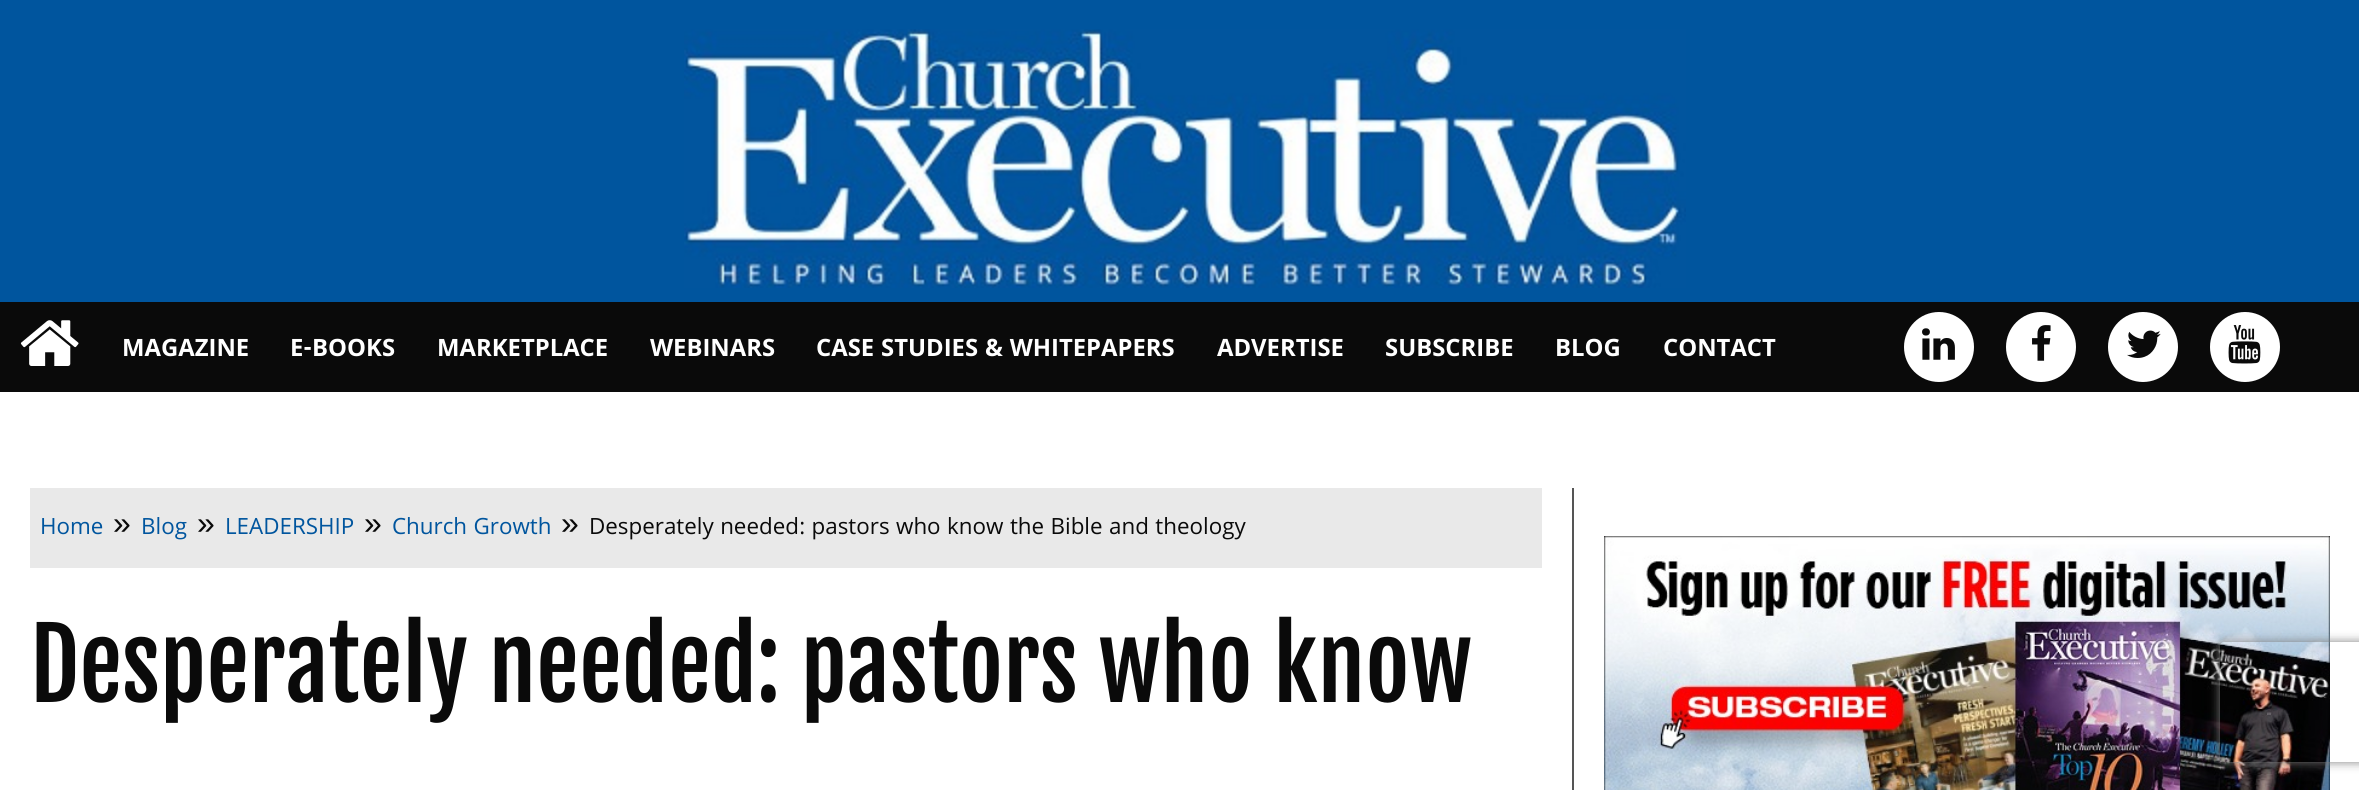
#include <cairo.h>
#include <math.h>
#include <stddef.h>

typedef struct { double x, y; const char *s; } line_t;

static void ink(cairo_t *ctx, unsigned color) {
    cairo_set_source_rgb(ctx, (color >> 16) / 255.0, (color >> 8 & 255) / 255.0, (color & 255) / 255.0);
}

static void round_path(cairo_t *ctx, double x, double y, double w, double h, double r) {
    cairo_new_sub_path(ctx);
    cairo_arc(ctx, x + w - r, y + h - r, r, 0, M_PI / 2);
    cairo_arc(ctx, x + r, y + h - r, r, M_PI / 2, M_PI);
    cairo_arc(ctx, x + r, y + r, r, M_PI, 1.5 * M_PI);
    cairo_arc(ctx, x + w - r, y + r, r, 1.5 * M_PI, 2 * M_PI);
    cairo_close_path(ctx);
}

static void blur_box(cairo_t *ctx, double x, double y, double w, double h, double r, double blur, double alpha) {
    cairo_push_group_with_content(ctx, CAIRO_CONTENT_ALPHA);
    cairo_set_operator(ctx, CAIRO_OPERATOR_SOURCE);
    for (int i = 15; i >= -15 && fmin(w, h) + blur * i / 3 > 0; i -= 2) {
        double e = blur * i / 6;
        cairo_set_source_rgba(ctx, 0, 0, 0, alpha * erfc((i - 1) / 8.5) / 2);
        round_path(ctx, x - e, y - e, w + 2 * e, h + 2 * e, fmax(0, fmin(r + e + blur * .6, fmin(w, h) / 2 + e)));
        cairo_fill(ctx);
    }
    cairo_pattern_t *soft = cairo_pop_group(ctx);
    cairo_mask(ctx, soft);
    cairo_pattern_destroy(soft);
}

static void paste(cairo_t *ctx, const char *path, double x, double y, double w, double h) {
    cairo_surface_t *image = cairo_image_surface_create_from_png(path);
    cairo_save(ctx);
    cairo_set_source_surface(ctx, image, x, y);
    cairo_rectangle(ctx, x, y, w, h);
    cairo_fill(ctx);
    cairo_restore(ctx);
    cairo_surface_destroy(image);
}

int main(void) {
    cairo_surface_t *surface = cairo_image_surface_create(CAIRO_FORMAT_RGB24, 2359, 790);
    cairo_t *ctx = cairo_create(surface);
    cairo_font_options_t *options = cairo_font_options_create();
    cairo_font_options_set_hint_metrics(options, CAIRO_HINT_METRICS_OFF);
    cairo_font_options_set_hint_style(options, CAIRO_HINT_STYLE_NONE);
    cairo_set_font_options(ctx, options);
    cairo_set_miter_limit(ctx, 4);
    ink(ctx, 0xFFFFFF);
    cairo_paint(ctx);
    ink(ctx, 0x00559E);
    cairo_rectangle(ctx, 0, 0, 2359, 302);
    cairo_fill(ctx);
    paste(ctx, "media/1.png", 684, 29, 1002, 259);
    ink(ctx, 0x0A0A0A);
    cairo_rectangle(ctx, 0, 302, 2359, 90);
    cairo_fill(ctx);
    paste(ctx, "media/2.png", 20, 320, 59, 46);
    cairo_select_font_face(ctx, "Khula", CAIRO_FONT_SLANT_NORMAL, CAIRO_FONT_WEIGHT_BOLD);
    cairo_set_font_size(ctx, 25.6);
    ink(ctx, 0xFFFFFF);
    {
        static const line_t items[] = {
            {122, 356, "MAGAZINE"},
            {290, 356, "E-BOOKS"},
            {437, 356, "MARKETPLACE"},
            {650, 356, "WEBINARS"},
            {816, 356, "CASE STUDIES & WHITEPAPERS"},
            {1217, 356, "ADVERTISE"},
            {1385, 356, "SUBSCRIBE"},
            {1555, 356, "BLOG"},
            {1663, 356, "CONTACT"},
        };
        for (size_t i = 0; i < sizeof items / sizeof *items; i++) {
            cairo_move_to(ctx, items[i].x, items[i].y);
            cairo_show_text(ctx, items[i].s);
        }
    }
    cairo_new_path(ctx);
    cairo_arc(ctx, 1939, 347, 35, 0, 2 * M_PI);
    cairo_fill(ctx);
    paste(ctx, "media/3.png", 1922, 328, 33, 32);
    cairo_arc(ctx, 2041, 347, 35, 0, 2 * M_PI);
    cairo_fill(ctx);
    paste(ctx, "media/4.png", 2032, 325, 19, 36);
    cairo_arc(ctx, 2143, 347, 35, 0, 2 * M_PI);
    cairo_fill(ctx);
    paste(ctx, "media/5.png", 2127, 330, 34, 28);
    cairo_arc(ctx, 2245, 347, 35, 0, 2 * M_PI);
    cairo_fill(ctx);
    paste(ctx, "media/6.png", 2228, 325, 33, 39);
    ink(ctx, 0x555555);
    cairo_rectangle(ctx, 1572, 488, 2, 302);
    cairo_fill(ctx);
    ink(ctx, 0xE9E9E9);
    cairo_rectangle(ctx, 30, 488, 1512, 80);
    cairo_fill(ctx);
    cairo_select_font_face(ctx, "Khula", CAIRO_FONT_SLANT_NORMAL, CAIRO_FONT_WEIGHT_NORMAL);
    cairo_set_font_size(ctx, 24);
    ink(ctx, 0x00559E);
    cairo_move_to(ctx, 40, 534);
    cairo_show_text(ctx, "Home");
    cairo_select_font_face(ctx, "Liberation Sans", CAIRO_FONT_SLANT_NORMAL, CAIRO_FONT_WEIGHT_NORMAL);
    cairo_set_font_size(ctx, 32);
    ink(ctx, 0x0A0A0A);
    cairo_move_to(ctx, 113, 534);
    cairo_show_text(ctx, "»");
    cairo_select_font_face(ctx, "Khula", CAIRO_FONT_SLANT_NORMAL, CAIRO_FONT_WEIGHT_NORMAL);
    cairo_set_font_size(ctx, 24);
    ink(ctx, 0x00559E);
    cairo_move_to(ctx, 141, 534);
    cairo_show_text(ctx, "Blog");
    cairo_select_font_face(ctx, "Liberation Sans", CAIRO_FONT_SLANT_NORMAL, CAIRO_FONT_WEIGHT_NORMAL);
    cairo_set_font_size(ctx, 32);
    ink(ctx, 0x0A0A0A);
    cairo_move_to(ctx, 197, 534);
    cairo_show_text(ctx, "»");
    cairo_select_font_face(ctx, "Khula", CAIRO_FONT_SLANT_NORMAL, CAIRO_FONT_WEIGHT_NORMAL);
    cairo_set_font_size(ctx, 24);
    ink(ctx, 0x00559E);
    cairo_move_to(ctx, 225, 534);
    cairo_show_text(ctx, "LEADERSHIP");
    cairo_select_font_face(ctx, "Liberation Sans", CAIRO_FONT_SLANT_NORMAL, CAIRO_FONT_WEIGHT_NORMAL);
    cairo_set_font_size(ctx, 32);
    ink(ctx, 0x0A0A0A);
    cairo_move_to(ctx, 364, 534);
    cairo_show_text(ctx, "»");
    cairo_select_font_face(ctx, "Khula", CAIRO_FONT_SLANT_NORMAL, CAIRO_FONT_WEIGHT_NORMAL);
    cairo_set_font_size(ctx, 24);
    ink(ctx, 0x00559E);
    cairo_move_to(ctx, 392, 534);
    cairo_show_text(ctx, "Church Growth");
    cairo_select_font_face(ctx, "Liberation Sans", CAIRO_FONT_SLANT_NORMAL, CAIRO_FONT_WEIGHT_NORMAL);
    cairo_set_font_size(ctx, 32);
    ink(ctx, 0x0A0A0A);
    cairo_move_to(ctx, 561, 534);
    cairo_show_text(ctx, "»");
    cairo_select_font_face(ctx, "Khula", CAIRO_FONT_SLANT_NORMAL, CAIRO_FONT_WEIGHT_NORMAL);
    cairo_set_font_size(ctx, 24);
    cairo_move_to(ctx, 589, 534);
    cairo_show_text(ctx, "Desperately needed: pastors who know the Bible and theology");
    cairo_select_font_face(ctx, "Fjalla One", CAIRO_FONT_SLANT_NORMAL, CAIRO_FONT_WEIGHT_NORMAL);
    cairo_set_font_size(ctx, 96);
    cairo_move_to(ctx, 30, 702);
    cairo_show_text(ctx, "Desperately needed: pastors who know");
    paste(ctx, "media/7.png", 1604, 536, 726, 254);
    cairo_save(ctx);
    cairo_set_fill_rule(ctx, CAIRO_FILL_RULE_EVEN_ODD);
    cairo_new_path(ctx);
    cairo_move_to(ctx, 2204, 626);
    cairo_line_to(ctx, 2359, 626);
    cairo_line_to(ctx, 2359, 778);
    cairo_line_to(ctx, 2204, 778);
    cairo_close_path(ctx);
    cairo_move_to(ctx, 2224, 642);
    cairo_line_to(ctx, 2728, 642);
    cairo_curve_to(ctx, 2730, 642, 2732, 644, 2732, 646);
    cairo_line_to(ctx, 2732, 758);
    cairo_curve_to(ctx, 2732, 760, 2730, 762, 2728, 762);
    cairo_line_to(ctx, 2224, 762);
    cairo_curve_to(ctx, 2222, 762, 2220, 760, 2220, 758);
    cairo_line_to(ctx, 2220, 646);
    cairo_curve_to(ctx, 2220, 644, 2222, 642, 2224, 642);
    cairo_close_path(ctx);
    cairo_clip(ctx);
    ink(ctx, 0x808080);
    blur_box(ctx, 2220, 642, 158, 120, 4, 5, 1);
    cairo_restore(ctx);
    cairo_surface_write_to_png(surface, "image.png");
    cairo_font_options_destroy(options);
    cairo_destroy(ctx);
    cairo_surface_destroy(surface);
    return 0;
}
